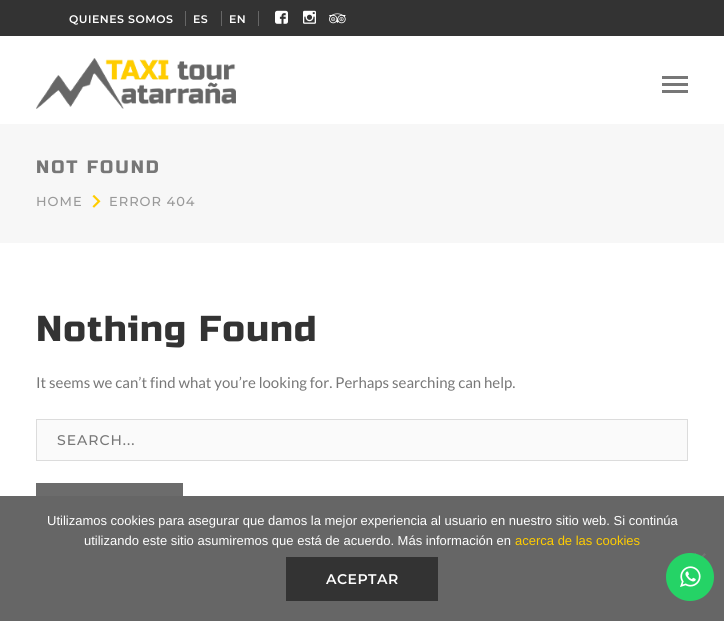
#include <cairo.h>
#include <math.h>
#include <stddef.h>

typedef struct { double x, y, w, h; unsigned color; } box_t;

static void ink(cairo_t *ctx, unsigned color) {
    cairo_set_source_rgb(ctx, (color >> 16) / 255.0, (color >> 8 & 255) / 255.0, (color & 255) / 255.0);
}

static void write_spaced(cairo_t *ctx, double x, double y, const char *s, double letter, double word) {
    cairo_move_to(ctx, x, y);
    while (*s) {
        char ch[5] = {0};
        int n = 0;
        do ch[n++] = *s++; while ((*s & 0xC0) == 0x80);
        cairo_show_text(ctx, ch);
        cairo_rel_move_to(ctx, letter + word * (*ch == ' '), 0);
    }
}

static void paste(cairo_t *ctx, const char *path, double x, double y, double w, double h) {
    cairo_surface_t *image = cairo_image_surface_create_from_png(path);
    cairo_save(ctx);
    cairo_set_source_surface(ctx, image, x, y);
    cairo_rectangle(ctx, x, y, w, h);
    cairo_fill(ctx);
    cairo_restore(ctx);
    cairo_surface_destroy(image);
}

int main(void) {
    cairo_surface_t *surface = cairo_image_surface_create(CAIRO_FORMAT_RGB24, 724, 621);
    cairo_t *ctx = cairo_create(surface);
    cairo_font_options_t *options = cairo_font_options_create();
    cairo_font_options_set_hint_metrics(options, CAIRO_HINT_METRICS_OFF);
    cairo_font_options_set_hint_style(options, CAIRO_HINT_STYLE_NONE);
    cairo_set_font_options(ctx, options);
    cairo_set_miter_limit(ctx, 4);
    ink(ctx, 0xFFFFFF);
    cairo_paint(ctx);
    ink(ctx, 0x333333);
    cairo_rectangle(ctx, 0, 0, 724, 36);
    cairo_fill(ctx);
    cairo_select_font_face(ctx, "Montserrat SemiBold", CAIRO_FONT_SLANT_NORMAL, CAIRO_FONT_WEIGHT_NORMAL);
    cairo_set_font_size(ctx, 11);
    ink(ctx, 0xFFFFFF);
    write_spaced(ctx, 69, 23, "QUIENES SOMOS", 0.5, 0);
    ink(ctx, 0x666666);
    cairo_rectangle(ctx, 185, 11, 1, 15);
    cairo_fill(ctx);
    ink(ctx, 0xFFFFFF);
    write_spaced(ctx, 193, 23, "ES", 0.5, 0);
    ink(ctx, 0x666666);
    cairo_rectangle(ctx, 221, 11, 1, 15);
    cairo_fill(ctx);
    ink(ctx, 0xFFFFFF);
    write_spaced(ctx, 229, 23, "EN", 0.5, 0);
    ink(ctx, 0x666666);
    cairo_rectangle(ctx, 258, 11, 1, 15);
    cairo_fill(ctx);
    paste(ctx, "media/1.png", 275, 10, 13, 14);
    paste(ctx, "media/2.png", 303, 10, 13, 14);
    paste(ctx, "media/3.png", 329, 13, 17, 11);
    paste(ctx, "media/4.png", 36, 58, 200, 51);
    {
        static const box_t items[] = {
            {662, 76, 26, 3, 0x777777},
            {662, 83, 26, 3, 0x777777},
            {662, 90, 26, 3, 0x777777},
            {0, 124, 724, 119, 0xF7F7F7},
        };
        for (size_t i = 0; i < sizeof items / sizeof *items; i++) {
            ink(ctx, items[i].color);
            cairo_rectangle(ctx, items[i].x, items[i].y, items[i].w, items[i].h);
            cairo_fill(ctx);
        }
    }
    cairo_select_font_face(ctx, "Russo One", CAIRO_FONT_SLANT_NORMAL, CAIRO_FONT_WEIGHT_NORMAL);
    cairo_set_font_size(ctx, 18);
    ink(ctx, 0x777777);
    write_spaced(ctx, 36, 173, "NOT FOUND", 2, 0);
    cairo_select_font_face(ctx, "Montserrat Medium", CAIRO_FONT_SLANT_NORMAL, CAIRO_FONT_WEIGHT_NORMAL);
    cairo_set_font_size(ctx, 13);
    ink(ctx, 0x999999);
    write_spaced(ctx, 36, 206, "HOME", 1, 0);
    paste(ctx, "media/5.png", 92, 195, 9, 13);
    write_spaced(ctx, 109, 206, "ERROR 404", 1, 0);
    cairo_select_font_face(ctx, "Russo One", CAIRO_FONT_SLANT_NORMAL, CAIRO_FONT_WEIGHT_NORMAL);
    cairo_set_font_size(ctx, 36);
    ink(ctx, 0x333333);
    write_spaced(ctx, 36, 341, "Nothing Found", 1, 0);
    cairo_select_font_face(ctx, "Lato", CAIRO_FONT_SLANT_NORMAL, CAIRO_FONT_WEIGHT_NORMAL);
    cairo_set_font_size(ctx, 15);
    ink(ctx, 0x777777);
    cairo_move_to(ctx, 36, 388);
    cairo_show_text(ctx, "It seems we can’t find what you’re looking for. Perhaps searching can help.");
    ink(ctx, 0xFAFAFA);
    cairo_rectangle(ctx, 36.5, 419.5, 651, 41);
    cairo_fill_preserve(ctx);
    ink(ctx, 0xDCDCDC);
    cairo_set_line_width(ctx, 1);
    cairo_stroke(ctx);
    cairo_select_font_face(ctx, "Montserrat Medium", CAIRO_FONT_SLANT_NORMAL, CAIRO_FONT_WEIGHT_NORMAL);
    cairo_set_font_size(ctx, 14);
    ink(ctx, 0x777777);
    write_spaced(ctx, 57, 445, "SEARCH...", 1, 0);
    ink(ctx, 0x6C6C6C);
    cairo_rectangle(ctx, 36, 483, 147, 13);
    cairo_fill(ctx);
    ink(ctx, 0x666666);
    cairo_rectangle(ctx, 0, 496, 724, 125);
    cairo_fill(ctx);
    cairo_select_font_face(ctx, "Liberation Sans", CAIRO_FONT_SLANT_NORMAL, CAIRO_FONT_WEIGHT_NORMAL);
    cairo_set_font_size(ctx, 13);
    ink(ctx, 0xFFFFFF);
    cairo_move_to(ctx, 47, 525);
    cairo_show_text(ctx, "Utilizamos cookies para asegurar que damos la mejor experiencia al usuario en nuestro sitio web. Si continúa");
    cairo_move_to(ctx, 84, 545);
    cairo_show_text(ctx, "utilizando este sitio asumiremos que está de acuerdo. Más información en");
    ink(ctx, 0xFFCC00);
    cairo_move_to(ctx, 515, 545);
    cairo_show_text(ctx, "acerca de las cookies");
    ink(ctx, 0x737373);
    cairo_new_path(ctx);
    cairo_move_to(ctx, 704.5, 553);
    cairo_line_to(ctx, 706, 554.5);
    cairo_line_to(ctx, 695.5, 565);
    cairo_line_to(ctx, 694, 563.5);
    cairo_close_path(ctx);
    cairo_fill(ctx);
    cairo_new_path(ctx);
    cairo_move_to(ctx, 694, 554.5);
    cairo_line_to(ctx, 695.5, 553);
    cairo_line_to(ctx, 706, 563.5);
    cairo_line_to(ctx, 704.5, 565);
    cairo_close_path(ctx);
    cairo_fill(ctx);
    ink(ctx, 0x333333);
    cairo_rectangle(ctx, 286, 557, 152, 44);
    cairo_fill(ctx);
    cairo_select_font_face(ctx, "Montserrat SemiBold", CAIRO_FONT_SLANT_NORMAL, CAIRO_FONT_WEIGHT_NORMAL);
    cairo_set_font_size(ctx, 14);
    ink(ctx, 0xFFFFFF);
    write_spaced(ctx, 326, 584, "ACEPTAR", 0.5, 0);
    ink(ctx, 0x25D366);
    cairo_new_path(ctx);
    cairo_arc(ctx, 690, 577, 24, 0, 2 * M_PI);
    cairo_fill(ctx);
    paste(ctx, "media/6.png", 680, 566, 21, 21);
    cairo_surface_write_to_png(surface, "image.png");
    cairo_font_options_destroy(options);
    cairo_destroy(ctx);
    cairo_surface_destroy(surface);
    return 0;
}
